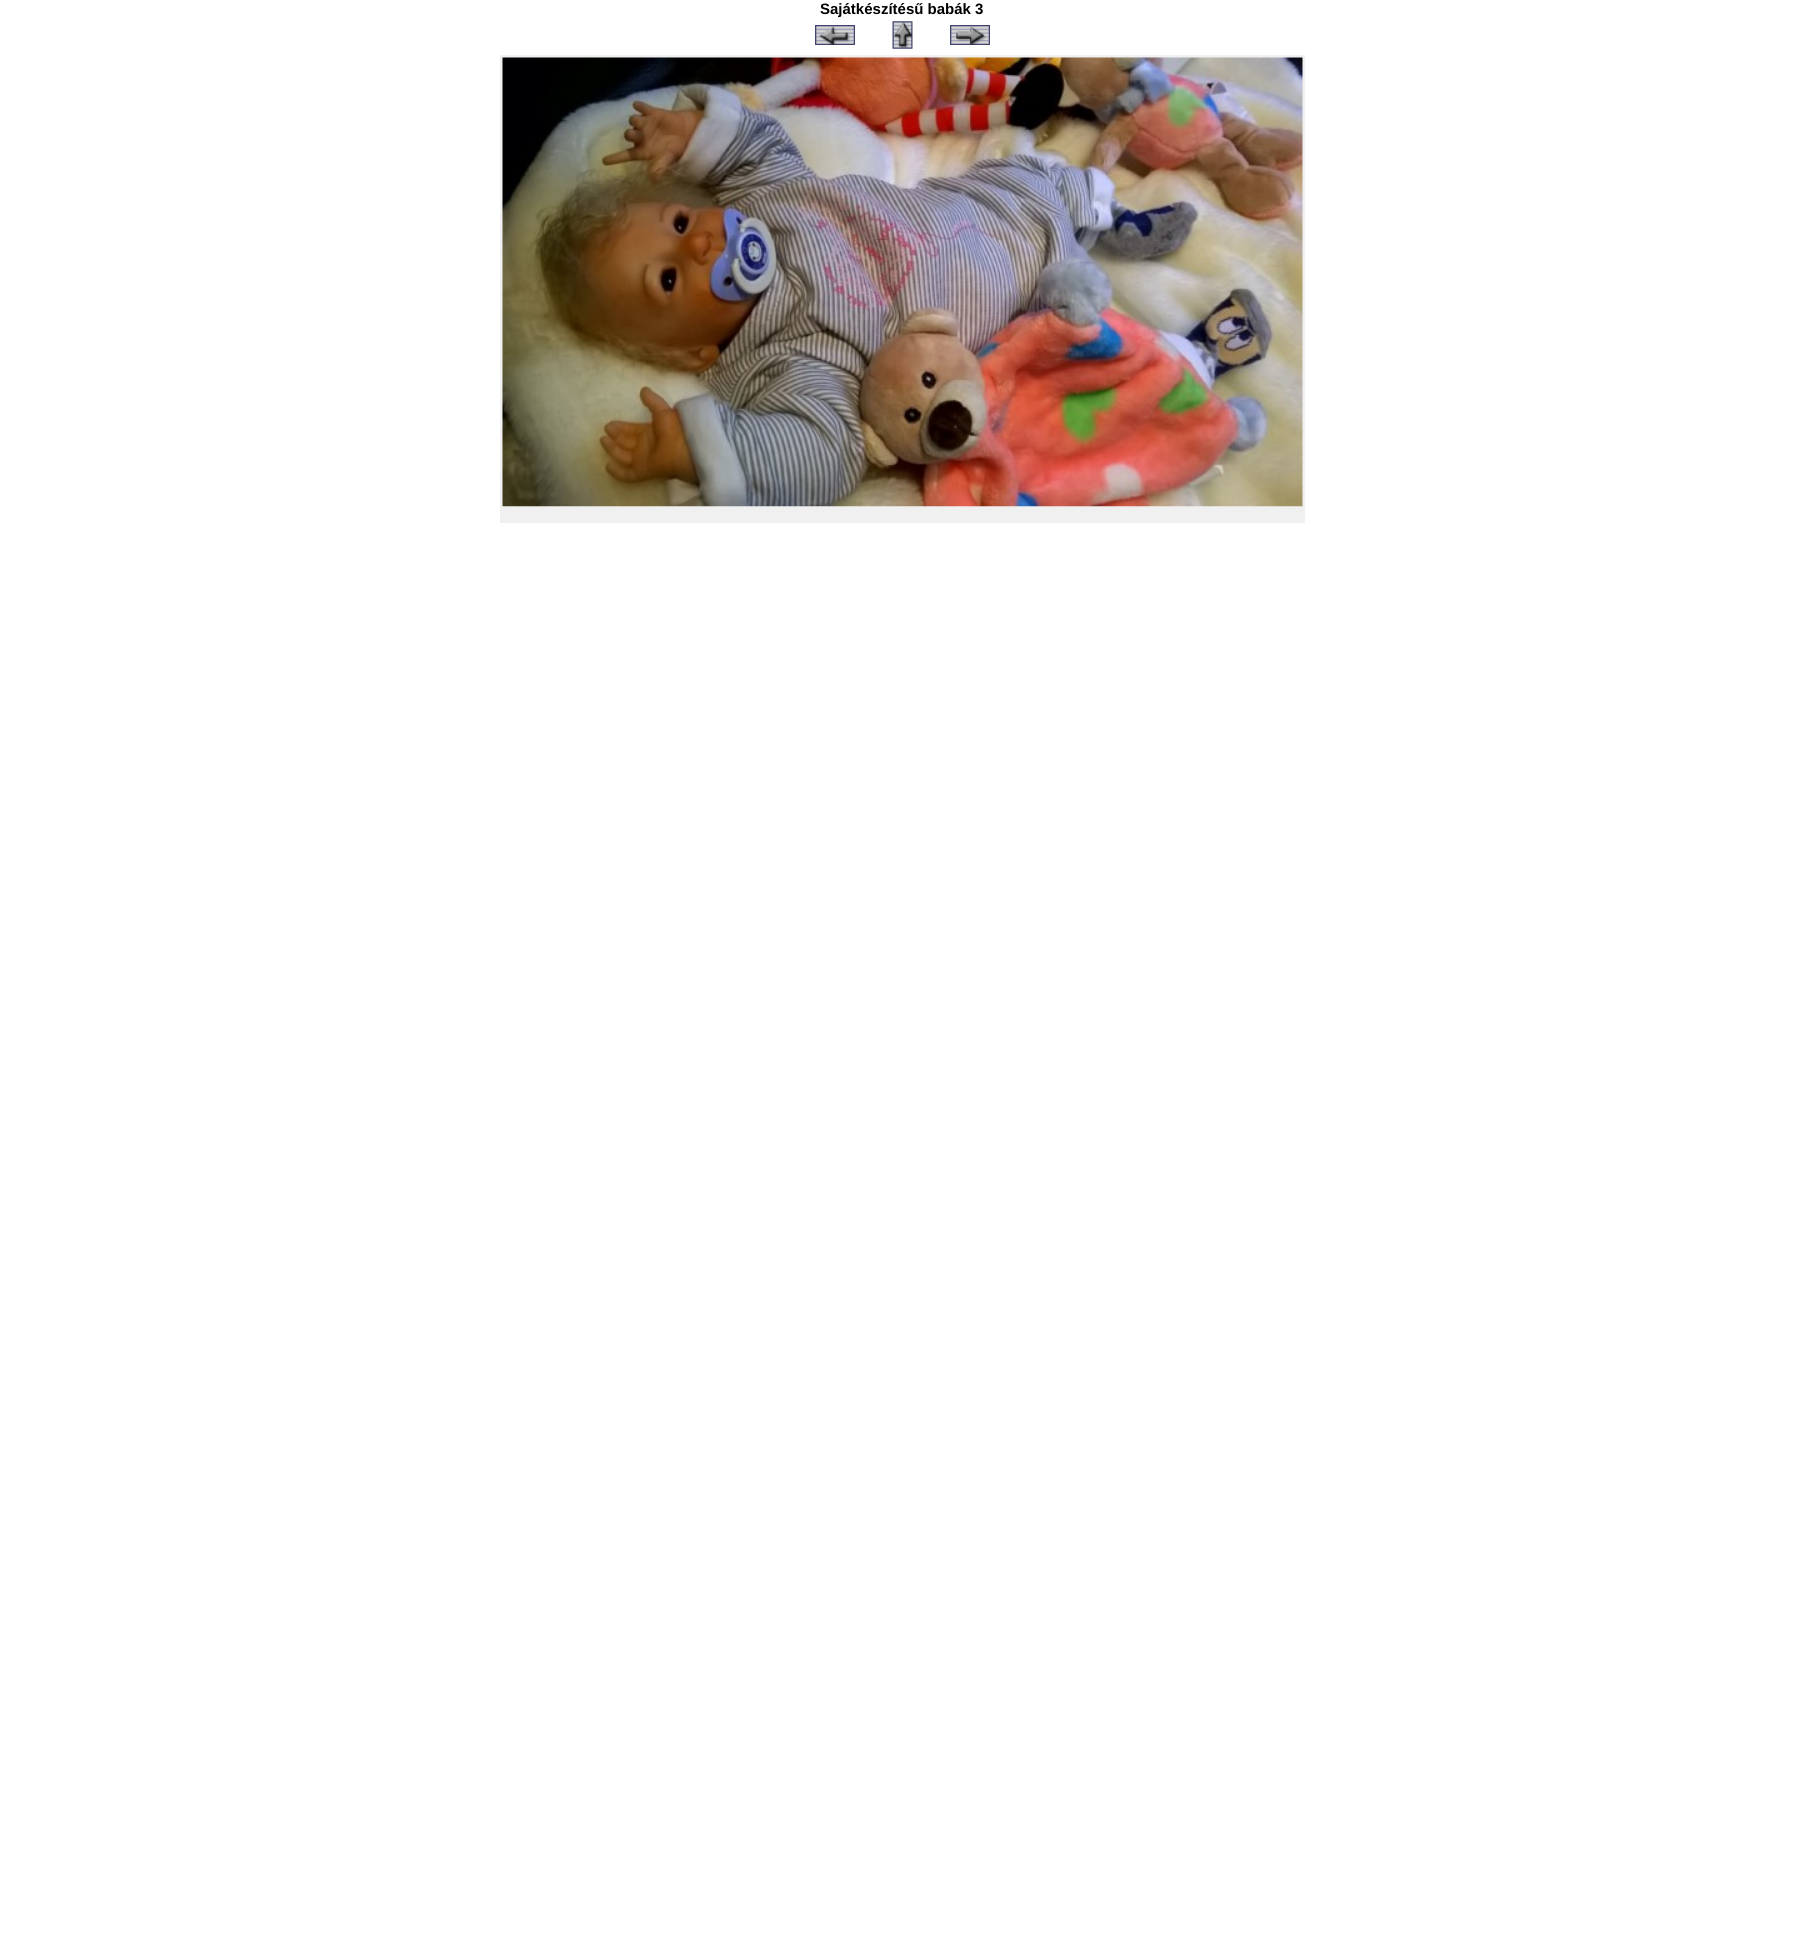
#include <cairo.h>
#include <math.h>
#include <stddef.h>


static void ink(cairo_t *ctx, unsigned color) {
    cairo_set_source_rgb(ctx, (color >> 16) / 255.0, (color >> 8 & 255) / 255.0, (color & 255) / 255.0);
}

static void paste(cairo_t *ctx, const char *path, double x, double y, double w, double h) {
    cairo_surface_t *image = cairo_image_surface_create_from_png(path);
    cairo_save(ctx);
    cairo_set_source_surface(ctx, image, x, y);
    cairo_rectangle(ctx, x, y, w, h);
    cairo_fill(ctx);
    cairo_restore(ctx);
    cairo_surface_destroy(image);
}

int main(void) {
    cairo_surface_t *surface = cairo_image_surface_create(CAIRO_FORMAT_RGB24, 1803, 1937);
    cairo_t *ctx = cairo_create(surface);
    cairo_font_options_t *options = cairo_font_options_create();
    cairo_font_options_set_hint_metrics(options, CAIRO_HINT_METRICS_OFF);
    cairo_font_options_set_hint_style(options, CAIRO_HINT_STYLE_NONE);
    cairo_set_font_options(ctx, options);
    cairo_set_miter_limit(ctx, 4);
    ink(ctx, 0xFFFFFF);
    cairo_paint(ctx);
    cairo_select_font_face(ctx, "Liberation Sans", CAIRO_FONT_SLANT_NORMAL, CAIRO_FONT_WEIGHT_BOLD);
    cairo_set_font_size(ctx, 15);
    ink(ctx, 0x000000);
    cairo_move_to(ctx, 820, 14);
    cairo_show_text(ctx, "Sajátkészítésű babák 3");
    paste(ctx, "media/1.png", 815, 25, 40, 20);
    paste(ctx, "media/2.png", 892, 21, 21, 28);
    paste(ctx, "media/3.png", 950, 25, 40, 20);
    ink(ctx, 0xF0F0F0);
    cairo_rectangle(ctx, 500, 55, 805, 468);
    cairo_fill(ctx);
    paste(ctx, "media/4.png", 502, 57, 801, 450);
    cairo_surface_write_to_png(surface, "image.png");
    cairo_font_options_destroy(options);
    cairo_destroy(ctx);
    cairo_surface_destroy(surface);
    return 0;
}
